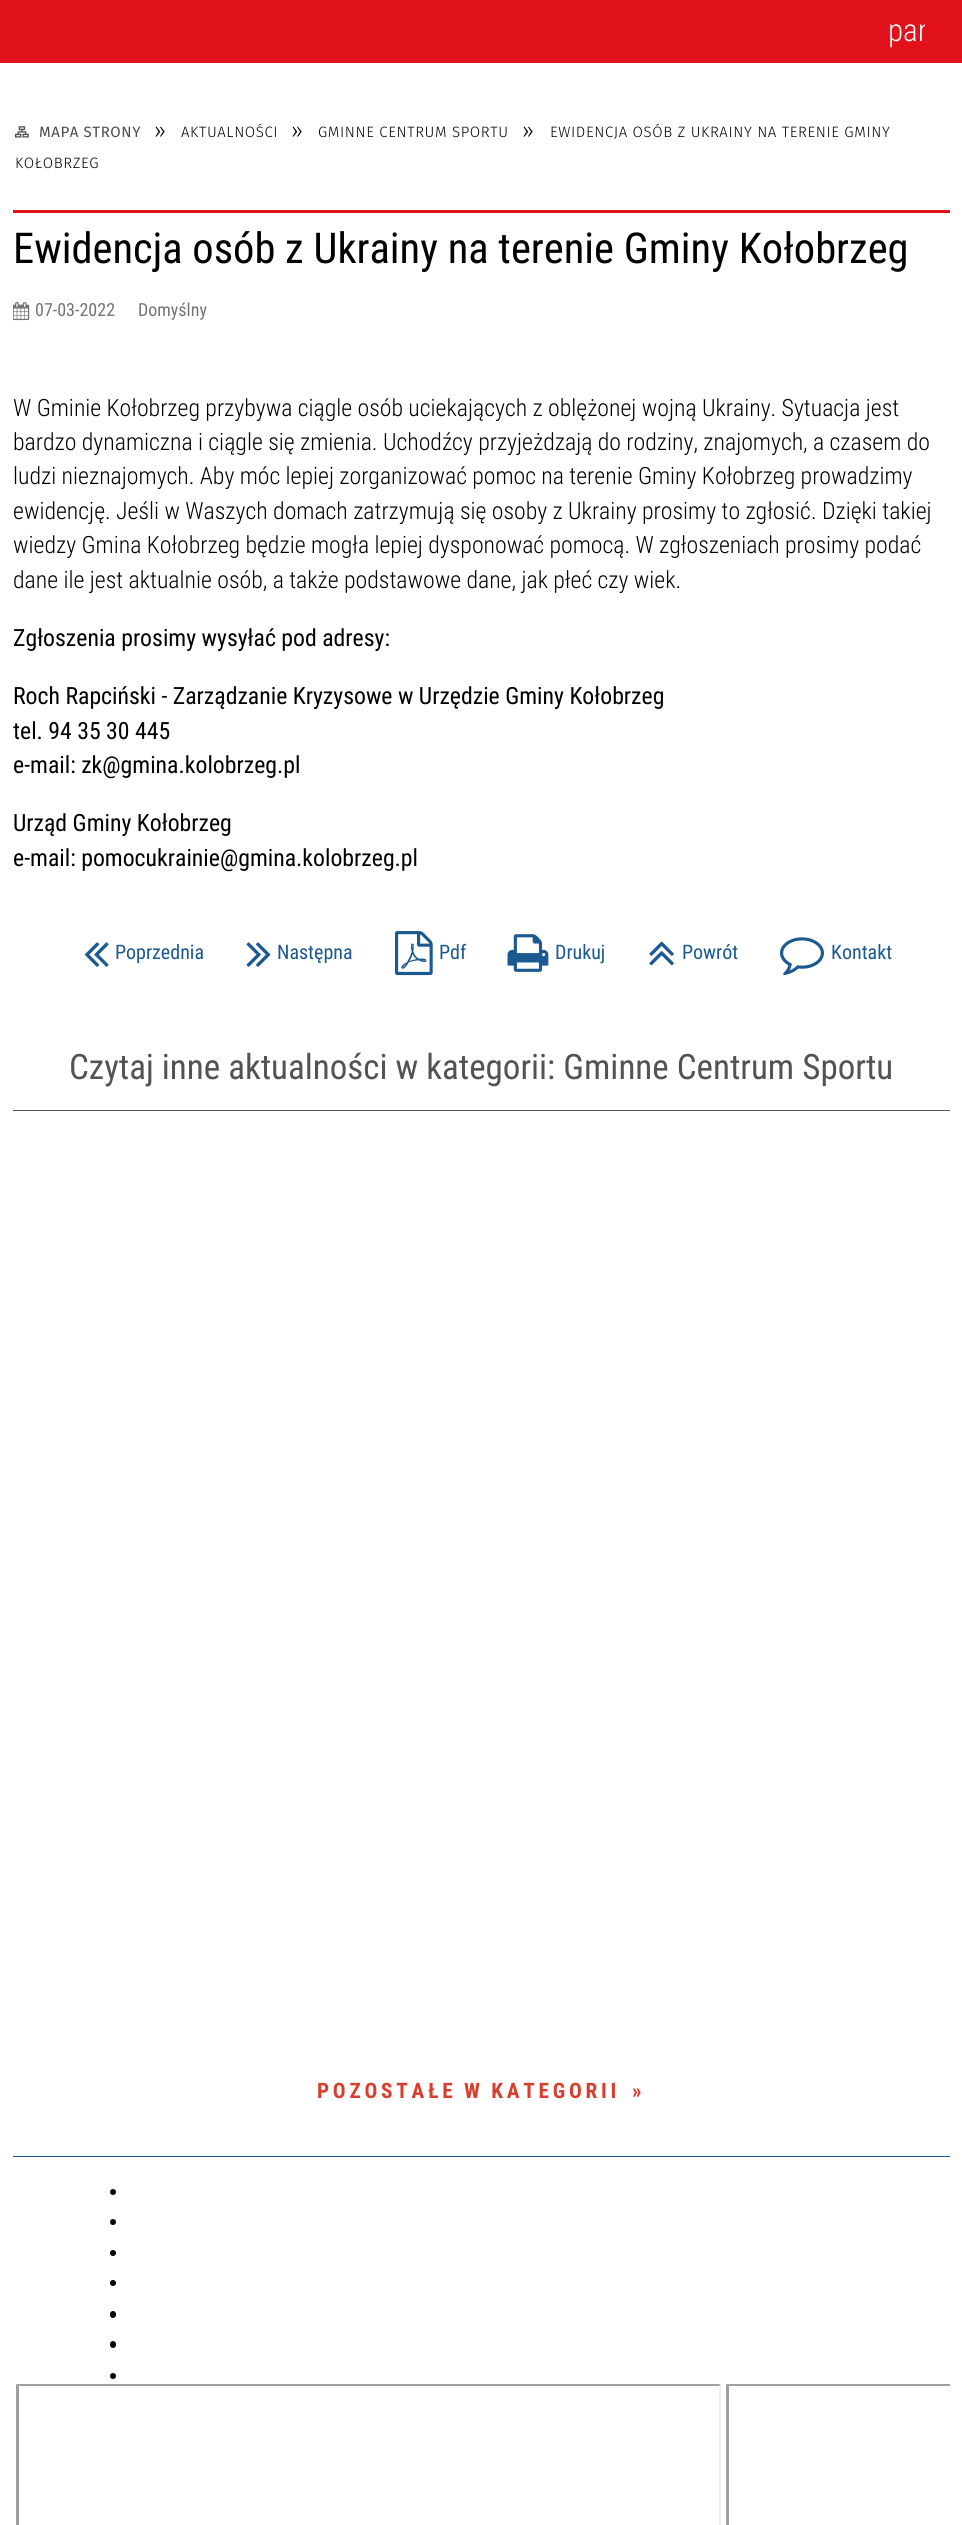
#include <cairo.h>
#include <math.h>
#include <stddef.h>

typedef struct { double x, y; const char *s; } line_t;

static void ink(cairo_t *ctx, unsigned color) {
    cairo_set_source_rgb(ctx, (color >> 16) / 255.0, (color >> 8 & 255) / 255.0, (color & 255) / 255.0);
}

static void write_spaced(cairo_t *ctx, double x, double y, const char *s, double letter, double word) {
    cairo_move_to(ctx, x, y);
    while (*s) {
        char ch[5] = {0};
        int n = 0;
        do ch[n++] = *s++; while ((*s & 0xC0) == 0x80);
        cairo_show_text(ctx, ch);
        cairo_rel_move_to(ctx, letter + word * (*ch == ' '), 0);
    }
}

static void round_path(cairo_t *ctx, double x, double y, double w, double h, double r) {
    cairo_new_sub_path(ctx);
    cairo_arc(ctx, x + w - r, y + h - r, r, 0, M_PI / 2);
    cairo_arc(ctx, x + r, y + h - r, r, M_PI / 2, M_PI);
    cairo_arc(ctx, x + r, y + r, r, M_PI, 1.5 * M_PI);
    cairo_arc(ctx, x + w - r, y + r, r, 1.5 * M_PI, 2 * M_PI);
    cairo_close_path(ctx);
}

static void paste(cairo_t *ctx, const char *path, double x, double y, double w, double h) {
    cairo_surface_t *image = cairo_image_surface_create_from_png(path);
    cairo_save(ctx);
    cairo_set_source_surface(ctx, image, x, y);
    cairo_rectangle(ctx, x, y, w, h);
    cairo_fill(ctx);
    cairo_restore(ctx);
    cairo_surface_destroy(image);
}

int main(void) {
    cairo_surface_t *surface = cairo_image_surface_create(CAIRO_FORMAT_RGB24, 962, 2525);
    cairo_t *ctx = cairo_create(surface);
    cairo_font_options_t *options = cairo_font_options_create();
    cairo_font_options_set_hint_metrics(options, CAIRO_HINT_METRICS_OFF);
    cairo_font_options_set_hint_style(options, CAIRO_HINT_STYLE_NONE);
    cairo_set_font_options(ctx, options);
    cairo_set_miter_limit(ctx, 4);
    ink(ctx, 0xFFFFFF);
    cairo_paint(ctx);
    ink(ctx, 0xE2121D);
    cairo_rectangle(ctx, 0, 0, 962, 63);
    cairo_fill(ctx);
    cairo_save(ctx);
    cairo_rectangle(ctx, 888, 13, 37, 37);
    cairo_clip(ctx);
    cairo_select_font_face(ctx, "Roboto Condensed Light", CAIRO_FONT_SLANT_NORMAL, CAIRO_FONT_WEIGHT_NORMAL);
    cairo_set_font_size(ctx, 31);
    ink(ctx, 0xFFFFFF);
    cairo_move_to(ctx, 888, 41);
    cairo_show_text(ctx, "pan");
    cairo_restore(ctx);
    paste(ctx, "media/1.png", 15, 126, 14, 12);
    cairo_select_font_face(ctx, "Fira Sans", CAIRO_FONT_SLANT_NORMAL, CAIRO_FONT_WEIGHT_NORMAL);
    cairo_set_font_size(ctx, 15);
    ink(ctx, 0x4C4C4C);
    write_spaced(ctx, 39, 137, "MAPA STRONY", 0.6, 0);
    cairo_select_font_face(ctx, "Fira Sans Light", CAIRO_FONT_SLANT_NORMAL, CAIRO_FONT_WEIGHT_NORMAL);
    cairo_set_font_size(ctx, 22);
    ink(ctx, 0x000000);
    write_spaced(ctx, 154, 138, "»", 0.6, 0);
    cairo_set_font_size(ctx, 15);
    write_spaced(ctx, 181, 137, "AKTUALNOŚCI", 0.6, 0);
    cairo_set_font_size(ctx, 22);
    write_spaced(ctx, 291, 138, "»", 0.6, 0);
    cairo_set_font_size(ctx, 15);
    write_spaced(ctx, 318, 137, "GMINNE CENTRUM SPORTU", 0.6, 0);
    cairo_set_font_size(ctx, 22);
    write_spaced(ctx, 522, 138, "»", 0.6, 0);
    cairo_set_font_size(ctx, 15);
    write_spaced(ctx, 550, 137, "EWIDENCJA OSÓB Z UKRAINY NA TERENIE GMINY", 0.6, 0);
    write_spaced(ctx, 15, 168, "KOŁOBRZEG", 0.6, 0);
    ink(ctx, 0xE2121D);
    cairo_rectangle(ctx, 13, 210, 937, 3);
    cairo_fill(ctx);
    cairo_select_font_face(ctx, "Roboto Condensed", CAIRO_FONT_SLANT_NORMAL, CAIRO_FONT_WEIGHT_NORMAL);
    cairo_set_font_size(ctx, 42.5);
    ink(ctx, 0x000000);
    cairo_move_to(ctx, 13, 263);
    cairo_show_text(ctx, "Ewidencja osób z Ukrainy na terenie Gminy Kołobrzeg");
    paste(ctx, "media/2.png", 13, 302, 17, 19);
    cairo_set_font_size(ctx, 18);
    ink(ctx, 0x737373);
    cairo_move_to(ctx, 35, 316);
    cairo_show_text(ctx, "07-03-2022");
    cairo_move_to(ctx, 138, 316);
    cairo_show_text(ctx, "Domyślny");
    cairo_select_font_face(ctx, "Roboto Condensed Light", CAIRO_FONT_SLANT_NORMAL, CAIRO_FONT_WEIGHT_NORMAL);
    cairo_set_font_size(ctx, 23.75);
    ink(ctx, 0x000000);
    {
        static const line_t items[] = {
            {13, 416, "W Gminie Kołobrzeg przybywa ciągle osób uciekających z oblężonej wojną Ukrainy. Sytuacja jest"},
            {13, 450, "bardzo dynamiczna i ciągle się zmienia. Uchodźcy przyjeżdzają do rodziny, znajomych, a czasem do"},
            {13, 484, "ludzi nieznajomych. Aby móc lepiej zorganizować pomoc na terenie Gminy Kołobrzeg prowadzimy"},
            {13, 519, "ewidencję. Jeśli w Waszych domach zatrzymują się osoby z Ukrainy prosimy to zgłosić. Dzięki takiej"},
            {13, 553, "wiedzy Gmina Kołobrzeg będzie mogła lepiej dysponować pomocą. W zgłoszeniach prosimy podać"},
            {13, 588, "dane ile jest aktualnie osób, a także podstawowe dane, jak płeć czy wiek."},
        };
        for (size_t i = 0; i < sizeof items / sizeof *items; i++) {
            cairo_move_to(ctx, items[i].x, items[i].y);
            cairo_show_text(ctx, items[i].s);
        }
    }
    cairo_select_font_face(ctx, "Roboto Condensed", CAIRO_FONT_SLANT_NORMAL, CAIRO_FONT_WEIGHT_NORMAL);
    {
        static const line_t items[] = {
            {13, 646, "Zgłoszenia prosimy wysyłać pod adresy:"},
            {13, 704, "Roch Rapciński - Zarządzanie Kryzysowe w Urzędzie Gminy Kołobrzeg"},
            {13, 739, "tel. 94 35 30 445"},
            {13, 773, "e-mail: zk@gmina.kolobrzeg.pl"},
            {13, 831, "Urząd Gminy Kołobrzeg"},
            {13, 866, "e-mail: pomocukrainie@gmina.kolobrzeg.pl"},
        };
        for (size_t i = 0; i < sizeof items / sizeof *items; i++) {
            cairo_move_to(ctx, items[i].x, items[i].y);
            cairo_show_text(ctx, items[i].s);
        }
    }
    paste(ctx, "media/3.png", 84, 942, 25, 25);
    cairo_set_font_size(ctx, 20);
    ink(ctx, 0x1B5991);
    cairo_move_to(ctx, 115, 959);
    cairo_show_text(ctx, "Poprzednia");
    paste(ctx, "media/4.png", 246, 942, 25, 25);
    cairo_move_to(ctx, 277, 959);
    cairo_show_text(ctx, "Następna");
    paste(ctx, "media/5.png", 395, 931, 38, 45);
    cairo_move_to(ctx, 439, 959);
    cairo_show_text(ctx, "Pdf");
    paste(ctx, "media/6.png", 507, 934, 42, 38);
    cairo_move_to(ctx, 555, 959);
    cairo_show_text(ctx, "Drukuj");
    paste(ctx, "media/7.png", 649, 941, 25, 25);
    cairo_move_to(ctx, 682, 959);
    cairo_show_text(ctx, "Powrót");
    paste(ctx, "media/8.png", 780, 937, 44, 38);
    cairo_move_to(ctx, 831, 959);
    cairo_show_text(ctx, "Kontakt");
    ink(ctx, 0x535254);
    cairo_rectangle(ctx, 13, 1110, 937, 1);
    cairo_fill(ctx);
    cairo_set_font_size(ctx, 35);
    cairo_move_to(ctx, 69, 1079);
    cairo_show_text(ctx, "Czytaj inne aktualności w kategorii: Gminne Centrum Sportu");
    cairo_select_font_face(ctx, "Roboto Condensed", CAIRO_FONT_SLANT_NORMAL, CAIRO_FONT_WEIGHT_BOLD);
    cairo_set_font_size(ctx, 21.25);
    ink(ctx, 0xD93D2E);
    write_spaced(ctx, 317, 2098, "POZOSTAŁE W KATEGORII", 3.75, -1);
    write_spaced(ctx, 632, 2098, "»", 3.75, 0);
    ink(ctx, 0x1B5991);
    cairo_rectangle(ctx, 13, 2156, 937, 1);
    cairo_fill(ctx);
    ink(ctx, 0x000000);
    cairo_arc(ctx, 113, 2192, 3, 0, 2 * M_PI);
    cairo_fill(ctx);
    cairo_arc(ctx, 113, 2222, 3, 0, 2 * M_PI);
    cairo_fill(ctx);
    cairo_arc(ctx, 113, 2253, 3, 0, 2 * M_PI);
    cairo_fill(ctx);
    cairo_arc(ctx, 113, 2283, 3, 0, 2 * M_PI);
    cairo_fill(ctx);
    round_path(ctx, 110, 2311, 6, 7, 3);
    cairo_fill(ctx);
    round_path(ctx, 110, 2341, 6, 7, 3);
    cairo_fill(ctx);
    cairo_arc(ctx, 113, 2376, 3, 0, 2 * M_PI);
    cairo_fill(ctx);
    ink(ctx, 0x9F9F9F);
    cairo_new_path(ctx);
    cairo_move_to(ctx, 16, 2384);
    cairo_line_to(ctx, 721, 2384);
    cairo_line_to(ctx, 719, 2386);
    cairo_line_to(ctx, 19, 2386);
    cairo_close_path(ctx);
    cairo_fill(ctx);
    cairo_new_path(ctx);
    cairo_move_to(ctx, 16, 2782);
    cairo_line_to(ctx, 16, 2384);
    cairo_line_to(ctx, 19, 2386);
    cairo_line_to(ctx, 19, 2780);
    cairo_close_path(ctx);
    cairo_fill(ctx);
    ink(ctx, 0xEEEEEE);
    cairo_new_path(ctx);
    cairo_move_to(ctx, 721, 2384);
    cairo_line_to(ctx, 721, 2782);
    cairo_line_to(ctx, 719, 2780);
    cairo_line_to(ctx, 719, 2386);
    cairo_close_path(ctx);
    cairo_fill(ctx);
    cairo_save(ctx);
    cairo_rectangle(ctx, 13, 75, 937, 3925);
    cairo_clip(ctx);
    ink(ctx, 0x9F9F9F);
    cairo_new_path(ctx);
    cairo_move_to(ctx, 726, 2384);
    cairo_line_to(ctx, 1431, 2384);
    cairo_line_to(ctx, 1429, 2386);
    cairo_line_to(ctx, 729, 2386);
    cairo_close_path(ctx);
    cairo_fill(ctx);
    cairo_restore(ctx);
    ink(ctx, 0x9F9F9F);
    cairo_new_path(ctx);
    cairo_move_to(ctx, 726, 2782);
    cairo_line_to(ctx, 726, 2384);
    cairo_line_to(ctx, 729, 2386);
    cairo_line_to(ctx, 729, 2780);
    cairo_close_path(ctx);
    cairo_fill(ctx);
    cairo_surface_write_to_png(surface, "image.png");
    cairo_font_options_destroy(options);
    cairo_destroy(ctx);
    cairo_surface_destroy(surface);
    return 0;
}
